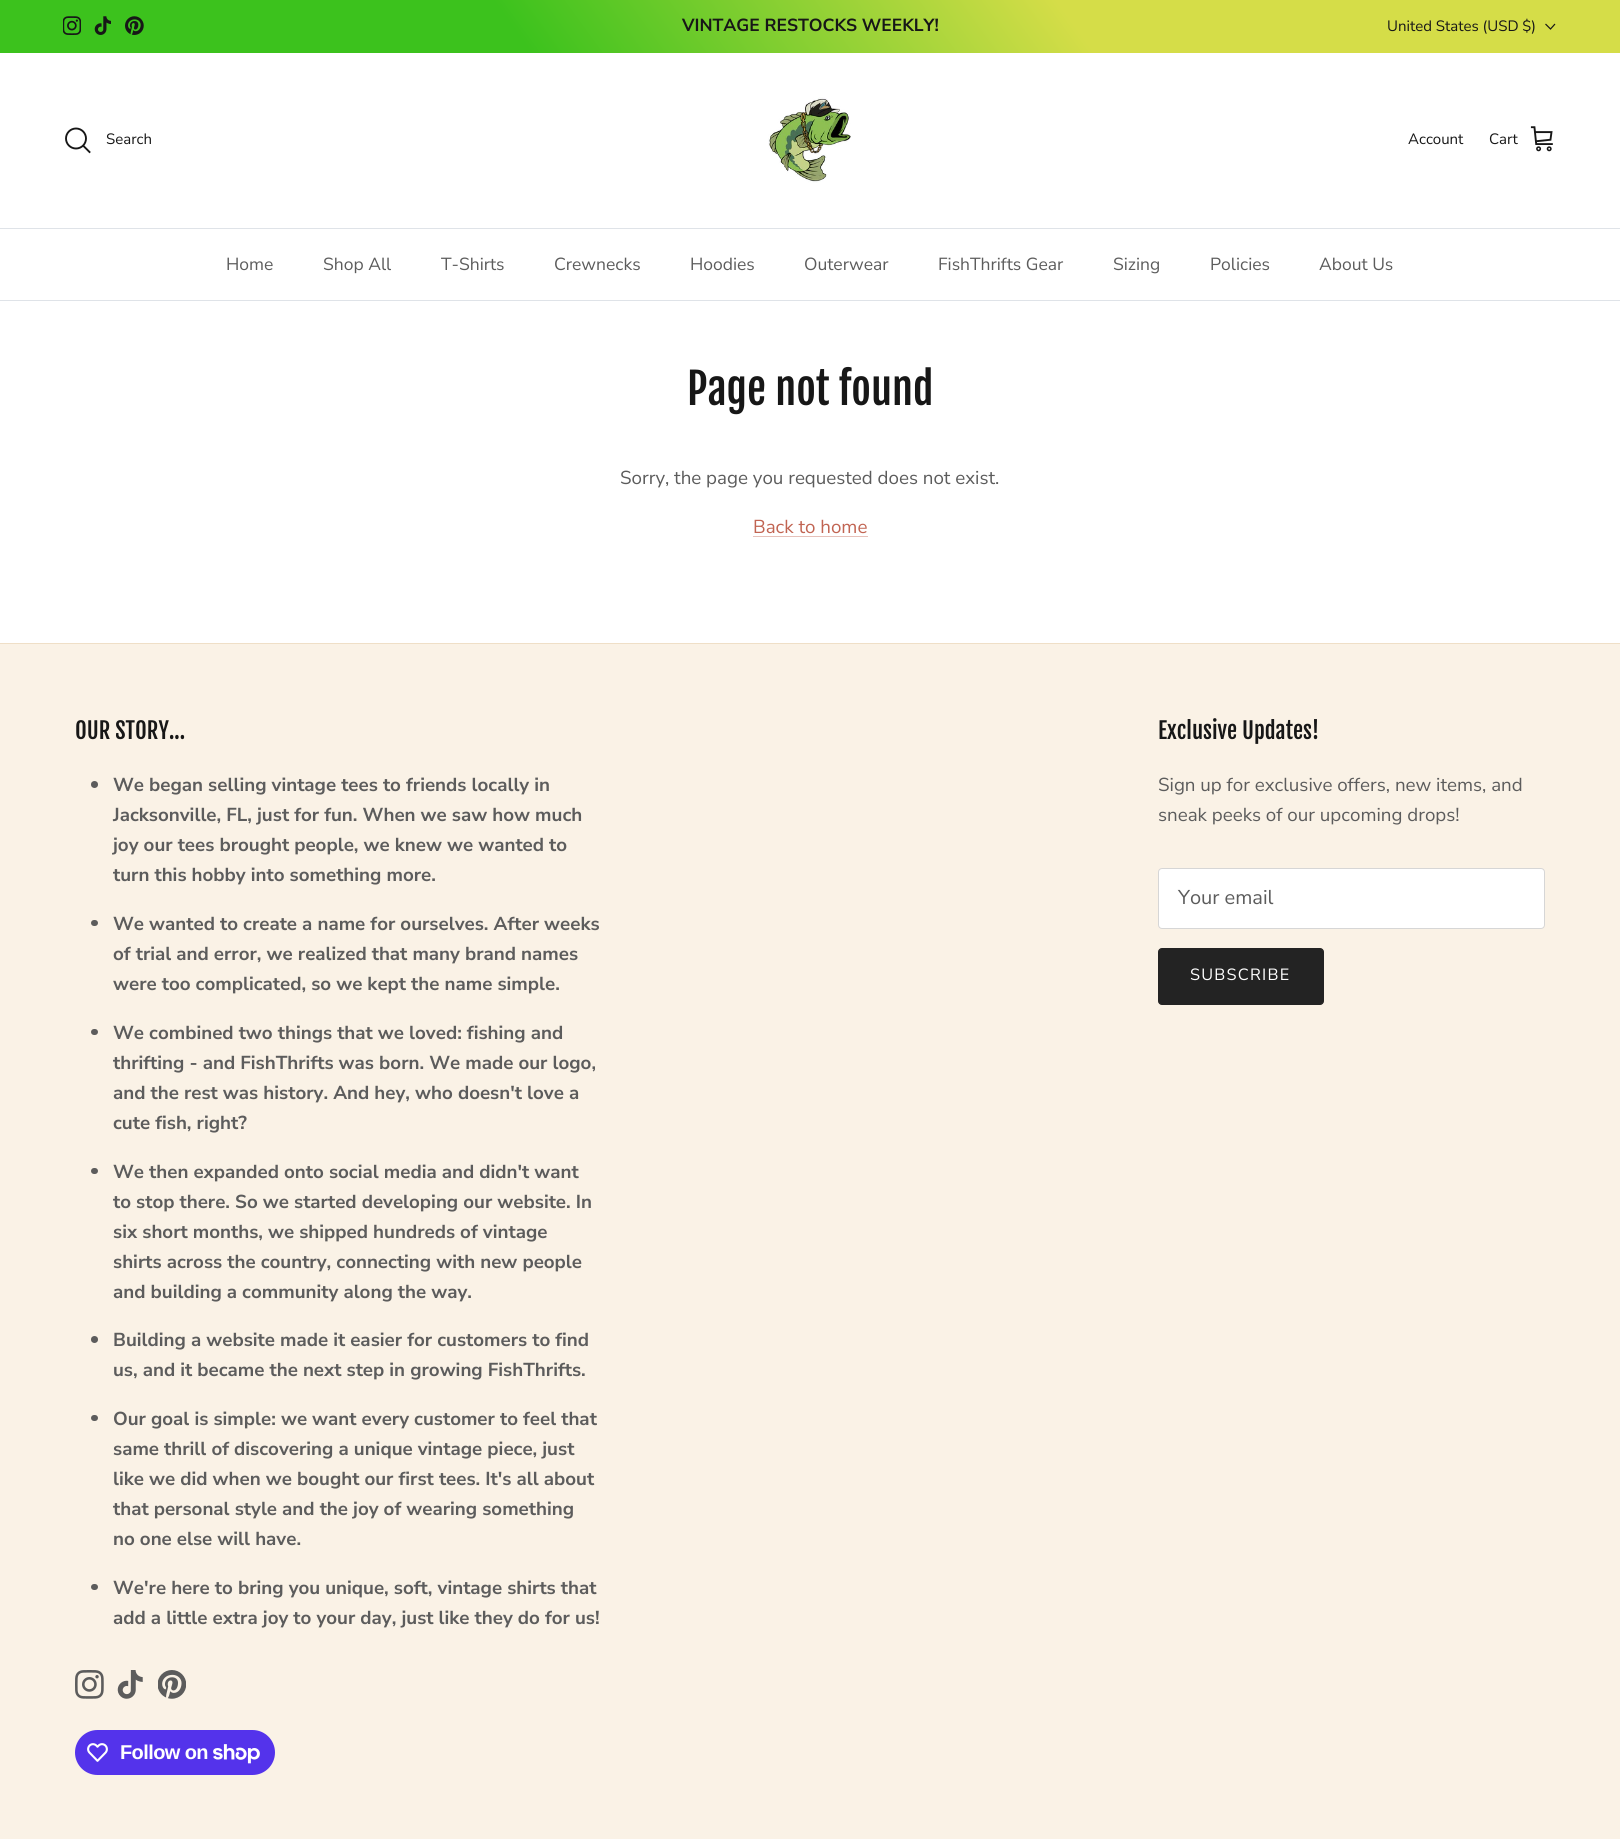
#include <cairo.h>
#include <math.h>
#include <stddef.h>

typedef struct { double x, y; const char *s; } line_t;
typedef struct { double x, y, w, h; unsigned color; } box_t;

static void ink(cairo_t *ctx, unsigned color) {
    cairo_set_source_rgb(ctx, (color >> 16) / 255.0, (color >> 8 & 255) / 255.0, (color & 255) / 255.0);
}

static void write_spaced(cairo_t *ctx, double x, double y, const char *s, double letter, double word) {
    cairo_move_to(ctx, x, y);
    while (*s) {
        char ch[5] = {0};
        int n = 0;
        do ch[n++] = *s++; while ((*s & 0xC0) == 0x80);
        cairo_show_text(ctx, ch);
        cairo_rel_move_to(ctx, letter + word * (*ch == ' '), 0);
    }
}

static void round_path(cairo_t *ctx, double x, double y, double w, double h, double r) {
    cairo_new_sub_path(ctx);
    cairo_arc(ctx, x + w - r, y + h - r, r, 0, M_PI / 2);
    cairo_arc(ctx, x + r, y + h - r, r, M_PI / 2, M_PI);
    cairo_arc(ctx, x + r, y + r, r, M_PI, 1.5 * M_PI);
    cairo_arc(ctx, x + w - r, y + r, r, 1.5 * M_PI, 2 * M_PI);
    cairo_close_path(ctx);
}

static void paste(cairo_t *ctx, const char *path, double x, double y, double w, double h) {
    cairo_surface_t *image = cairo_image_surface_create_from_png(path);
    cairo_save(ctx);
    cairo_set_source_surface(ctx, image, x, y);
    cairo_rectangle(ctx, x, y, w, h);
    cairo_fill(ctx);
    cairo_restore(ctx);
    cairo_surface_destroy(image);
}

int main(void) {
    cairo_surface_t *surface = cairo_image_surface_create(CAIRO_FORMAT_RGB24, 1620, 1839);
    cairo_t *ctx = cairo_create(surface);
    cairo_font_options_t *options = cairo_font_options_create();
    cairo_font_options_set_hint_metrics(options, CAIRO_HINT_METRICS_OFF);
    cairo_font_options_set_hint_style(options, CAIRO_HINT_STYLE_NONE);
    cairo_set_font_options(ctx, options);
    cairo_set_miter_limit(ctx, 4);
    cairo_pattern_t *gradient;
    ink(ctx, 0xFFFFFF);
    cairo_paint(ctx);
    gradient = cairo_pattern_create_linear(267, 420, 1353, -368);
    cairo_pattern_add_color_stop_rgba(gradient, 0.32, 0.235, 0.761, 0.114, 1);
    cairo_pattern_add_color_stop_rgba(gradient, 0.66, 0.835, 0.867, 0.282, 1);
    cairo_set_source(ctx, gradient);
    cairo_pattern_destroy(gradient);
    cairo_rectangle(ctx, 0, 0, 1620, 53);
    cairo_fill(ctx);
    paste(ctx, "media/1.png", 63, 16, 18, 19);
    paste(ctx, "media/2.png", 94, 16, 17, 19);
    paste(ctx, "media/3.png", 125, 16, 19, 19);
    cairo_select_font_face(ctx, "Nunito Sans", CAIRO_FONT_SLANT_NORMAL, CAIRO_FONT_WEIGHT_BOLD);
    cairo_set_font_size(ctx, 17.5);
    ink(ctx, 0x171717);
    cairo_move_to(ctx, 682, 31);
    cairo_show_text(ctx, "VINTAGE RESTOCKS WEEKLY!");
    cairo_select_font_face(ctx, "Nunito Sans", CAIRO_FONT_SLANT_NORMAL, CAIRO_FONT_WEIGHT_NORMAL);
    cairo_set_font_size(ctx, 15);
    cairo_move_to(ctx, 1387, 31);
    cairo_show_text(ctx, "United States (USD $)");
    cairo_new_path(ctx);
    cairo_move_to(ctx, 1555, 24);
    cairo_line_to(ctx, 1550.5, 29);
    cairo_line_to(ctx, 1545.5, 24);
    cairo_set_line_width(ctx, 1.2);
    cairo_stroke(ctx);
    ink(ctx, 0xDFE3E8);
    cairo_rectangle(ctx, 0, 228, 1620, 1);
    cairo_fill(ctx);
    cairo_arc(ctx, 76, 138.5, 10, 0, 2 * M_PI);
    ink(ctx, 0x171717);
    cairo_set_line_width(ctx, 1.9);
    cairo_stroke(ctx);
    cairo_move_to(ctx, 106, 144);
    cairo_show_text(ctx, "Search");
    cairo_new_path(ctx);
    cairo_move_to(ctx, 83.5, 146);
    cairo_line_to(ctx, 89.5, 152);
    cairo_set_line_cap(ctx, CAIRO_LINE_CAP_SQUARE);
    cairo_stroke(ctx);
    paste(ctx, "media/4.png", 768, 97, 83, 86);
    cairo_move_to(ctx, 1408, 144);
    cairo_show_text(ctx, "Account");
    cairo_move_to(ctx, 1489, 144);
    cairo_show_text(ctx, "Cart");
    paste(ctx, "media/5.png", 1530, 126, 23, 26);
    ink(ctx, 0xDFE3E8);
    cairo_rectangle(ctx, 0, 300, 1620, 1);
    cairo_fill(ctx);
    cairo_set_font_size(ctx, 17.5);
    ink(ctx, 0x5C5C5C);
    {
        static const line_t items[] = {
            {226, 270, "Home"},
            {323, 270, "Shop All"},
            {441, 270, "T-Shirts"},
            {554, 270, "Crewnecks"},
            {690, 270, "Hoodies"},
            {804, 270, "Outerwear"},
            {938, 270, "FishThrifts Gear"},
            {1113, 270, "Sizing"},
            {1210, 270, "Policies"},
            {1319, 270, "About Us"},
        };
        for (size_t i = 0; i < sizeof items / sizeof *items; i++) {
            cairo_move_to(ctx, items[i].x, items[i].y);
            cairo_show_text(ctx, items[i].s);
        }
    }
    cairo_select_font_face(ctx, "Fjalla One", CAIRO_FONT_SLANT_NORMAL, CAIRO_FONT_WEIGHT_NORMAL);
    cairo_set_font_size(ctx, 42.5);
    ink(ctx, 0x171717);
    cairo_move_to(ctx, 687, 405);
    cairo_show_text(ctx, "Page not found");
    cairo_select_font_face(ctx, "Nunito Sans", CAIRO_FONT_SLANT_NORMAL, CAIRO_FONT_WEIGHT_NORMAL);
    cairo_set_font_size(ctx, 18.75);
    ink(ctx, 0x5C5C5C);
    cairo_move_to(ctx, 620, 484);
    cairo_show_text(ctx, "Sorry, the page you requested does not exist.");
    ink(ctx, 0xC16452);
    cairo_move_to(ctx, 753, 533);
    cairo_show_text(ctx, "Back to home");
    {
        static const box_t items[] = {
            {753, 536, 115, 1, 0xE6C1BA},
            {0, 644, 1620, 1195, 0xFAF2E6},
            {0, 643, 1620, 1, 0xEFDFC7},
        };
        for (size_t i = 0; i < sizeof items / sizeof *items; i++) {
            ink(ctx, items[i].color);
            cairo_rectangle(ctx, items[i].x, items[i].y, items[i].w, items[i].h);
            cairo_fill(ctx);
        }
    }
    cairo_select_font_face(ctx, "Fjalla One", CAIRO_FONT_SLANT_NORMAL, CAIRO_FONT_WEIGHT_NORMAL);
    cairo_set_font_size(ctx, 22.5);
    ink(ctx, 0x171717);
    cairo_move_to(ctx, 75, 739);
    cairo_show_text(ctx, "OUR STORY...");
    ink(ctx, 0x5C5C5C);
    cairo_new_path(ctx);
    cairo_arc(ctx, 94.5, 784.5, 3.5, 0, 2 * M_PI);
    cairo_fill(ctx);
    cairo_select_font_face(ctx, "Nunito Sans", CAIRO_FONT_SLANT_NORMAL, CAIRO_FONT_WEIGHT_BOLD);
    cairo_set_font_size(ctx, 18.75);
    {
        static const line_t items[] = {
            {113, 791, "We began selling vintage tees to friends locally in"},
            {113, 821, "Jacksonville, FL, just for fun. When we saw how much"},
            {113, 851, "joy our tees brought people, we knew we wanted to"},
            {113, 881, "turn this hobby into something more."},
        };
        for (size_t i = 0; i < sizeof items / sizeof *items; i++) {
            cairo_move_to(ctx, items[i].x, items[i].y);
            cairo_show_text(ctx, items[i].s);
        }
    }
    round_path(ctx, 91, 920, 7, 6, 3);
    cairo_fill(ctx);
    {
        static const line_t items[] = {
            {113, 930, "We wanted to create a name for ourselves. After weeks"},
            {113, 960, "of trial and error, we realized that many brand names"},
            {113, 990, "were too complicated, so we kept the name simple."},
        };
        for (size_t i = 0; i < sizeof items / sizeof *items; i++) {
            cairo_move_to(ctx, items[i].x, items[i].y);
            cairo_show_text(ctx, items[i].s);
        }
    }
    round_path(ctx, 91, 1029, 7, 6, 3);
    cairo_fill(ctx);
    {
        static const line_t items[] = {
            {113, 1039, "We combined two things that we loved: fishing and"},
            {113, 1069, "thrifting - and FishThrifts was born. We made our logo,"},
            {113, 1099, "and the rest was history. And hey, who doesn't love a"},
            {113, 1129, "cute fish, right?"},
        };
        for (size_t i = 0; i < sizeof items / sizeof *items; i++) {
            cairo_move_to(ctx, items[i].x, items[i].y);
            cairo_show_text(ctx, items[i].s);
        }
    }
    round_path(ctx, 91, 1168, 7, 6, 3);
    cairo_fill(ctx);
    {
        static const line_t items[] = {
            {113, 1178, "We then expanded onto social media and didn't want"},
            {113, 1208, "to stop there. So we started developing our website. In"},
            {113, 1238, "six short months, we shipped hundreds of vintage"},
            {113, 1268, "shirts across the country, connecting with new people"},
            {113, 1298, "and building a community along the way."},
        };
        for (size_t i = 0; i < sizeof items / sizeof *items; i++) {
            cairo_move_to(ctx, items[i].x, items[i].y);
            cairo_show_text(ctx, items[i].s);
        }
    }
    cairo_new_path(ctx);
    cairo_arc(ctx, 94.5, 1339.5, 3.5, 0, 2 * M_PI);
    cairo_fill(ctx);
    cairo_move_to(ctx, 113, 1346);
    cairo_show_text(ctx, "Building a website made it easier for customers to find");
    cairo_move_to(ctx, 113, 1376);
    cairo_show_text(ctx, "us, and it became the next step in growing FishThrifts.");
    round_path(ctx, 91, 1415, 7, 6, 3);
    cairo_fill(ctx);
    {
        static const line_t items[] = {
            {113, 1425, "Our goal is simple: we want every customer to feel that"},
            {113, 1455, "same thrill of discovering a unique vintage piece, just"},
            {113, 1485, "like we did when we bought our first tees. It's all about"},
            {113, 1515, "that personal style and the joy of wearing something"},
            {113, 1545, "no one else will have."},
        };
        for (size_t i = 0; i < sizeof items / sizeof *items; i++) {
            cairo_move_to(ctx, items[i].x, items[i].y);
            cairo_show_text(ctx, items[i].s);
        }
    }
    round_path(ctx, 91, 1584, 7, 6, 3);
    cairo_fill(ctx);
    cairo_move_to(ctx, 113, 1594);
    cairo_show_text(ctx, "We're here to bring you unique, soft, vintage shirts that");
    cairo_move_to(ctx, 113, 1624);
    cairo_show_text(ctx, "add a little extra joy to your day, just like they do for us!");
    paste(ctx, "media/6.png", 75, 1670, 29, 29);
    paste(ctx, "media/7.png", 117, 1670, 26, 29);
    paste(ctx, "media/8.png", 158, 1670, 28, 29);
    ink(ctx, 0x5433EB);
    round_path(ctx, 75, 1730, 200, 45, 22.5);
    cairo_fill(ctx);
    paste(ctx, "media/9.png", 87, 1743, 21, 19);
    cairo_select_font_face(ctx, "Liberation Sans", CAIRO_FONT_SLANT_NORMAL, CAIRO_FONT_WEIGHT_BOLD);
    cairo_set_font_size(ctx, 20);
    ink(ctx, 0xFFFFFF);
    write_spaced(ctx, 120, 1759, "Follow on", -0.6, 0);
    paste(ctx, "media/10.png", 213, 1744, 47, 20);
    cairo_select_font_face(ctx, "Fjalla One", CAIRO_FONT_SLANT_NORMAL, CAIRO_FONT_WEIGHT_NORMAL);
    cairo_set_font_size(ctx, 22.5);
    ink(ctx, 0x171717);
    cairo_move_to(ctx, 1158, 739);
    cairo_show_text(ctx, "Exclusive Updates!");
    cairo_select_font_face(ctx, "Nunito Sans", CAIRO_FONT_SLANT_NORMAL, CAIRO_FONT_WEIGHT_NORMAL);
    cairo_set_font_size(ctx, 18.75);
    ink(ctx, 0x5C5C5C);
    cairo_move_to(ctx, 1158, 791);
    cairo_show_text(ctx, "Sign up for exclusive offers, new items, and");
    cairo_move_to(ctx, 1158, 821);
    cairo_show_text(ctx, "sneak peeks of our upcoming drops!");
    ink(ctx, 0xFFFFFF);
    round_path(ctx, 1158.5, 868.5, 386, 60, 3.5);
    cairo_fill_preserve(ctx);
    ink(ctx, 0xD6D6D6);
    cairo_set_line_width(ctx, 1);
    cairo_set_line_cap(ctx, CAIRO_LINE_CAP_BUTT);
    cairo_stroke(ctx);
    cairo_set_font_size(ctx, 20);
    ink(ctx, 0x5C5C5C);
    cairo_move_to(ctx, 1178, 904);
    cairo_show_text(ctx, "Your email");
    ink(ctx, 0x232323);
    round_path(ctx, 1158.5, 948.5, 165, 56, 3.5);
    cairo_fill_preserve(ctx);
    cairo_stroke(ctx);
    cairo_set_font_size(ctx, 16.25);
    ink(ctx, 0xFFFFFF);
    write_spaced(ctx, 1190, 980, "SUBSCRIBE", 1.25, 0);
    cairo_surface_write_to_png(surface, "image.png");
    cairo_font_options_destroy(options);
    cairo_destroy(ctx);
    cairo_surface_destroy(surface);
    return 0;
}
